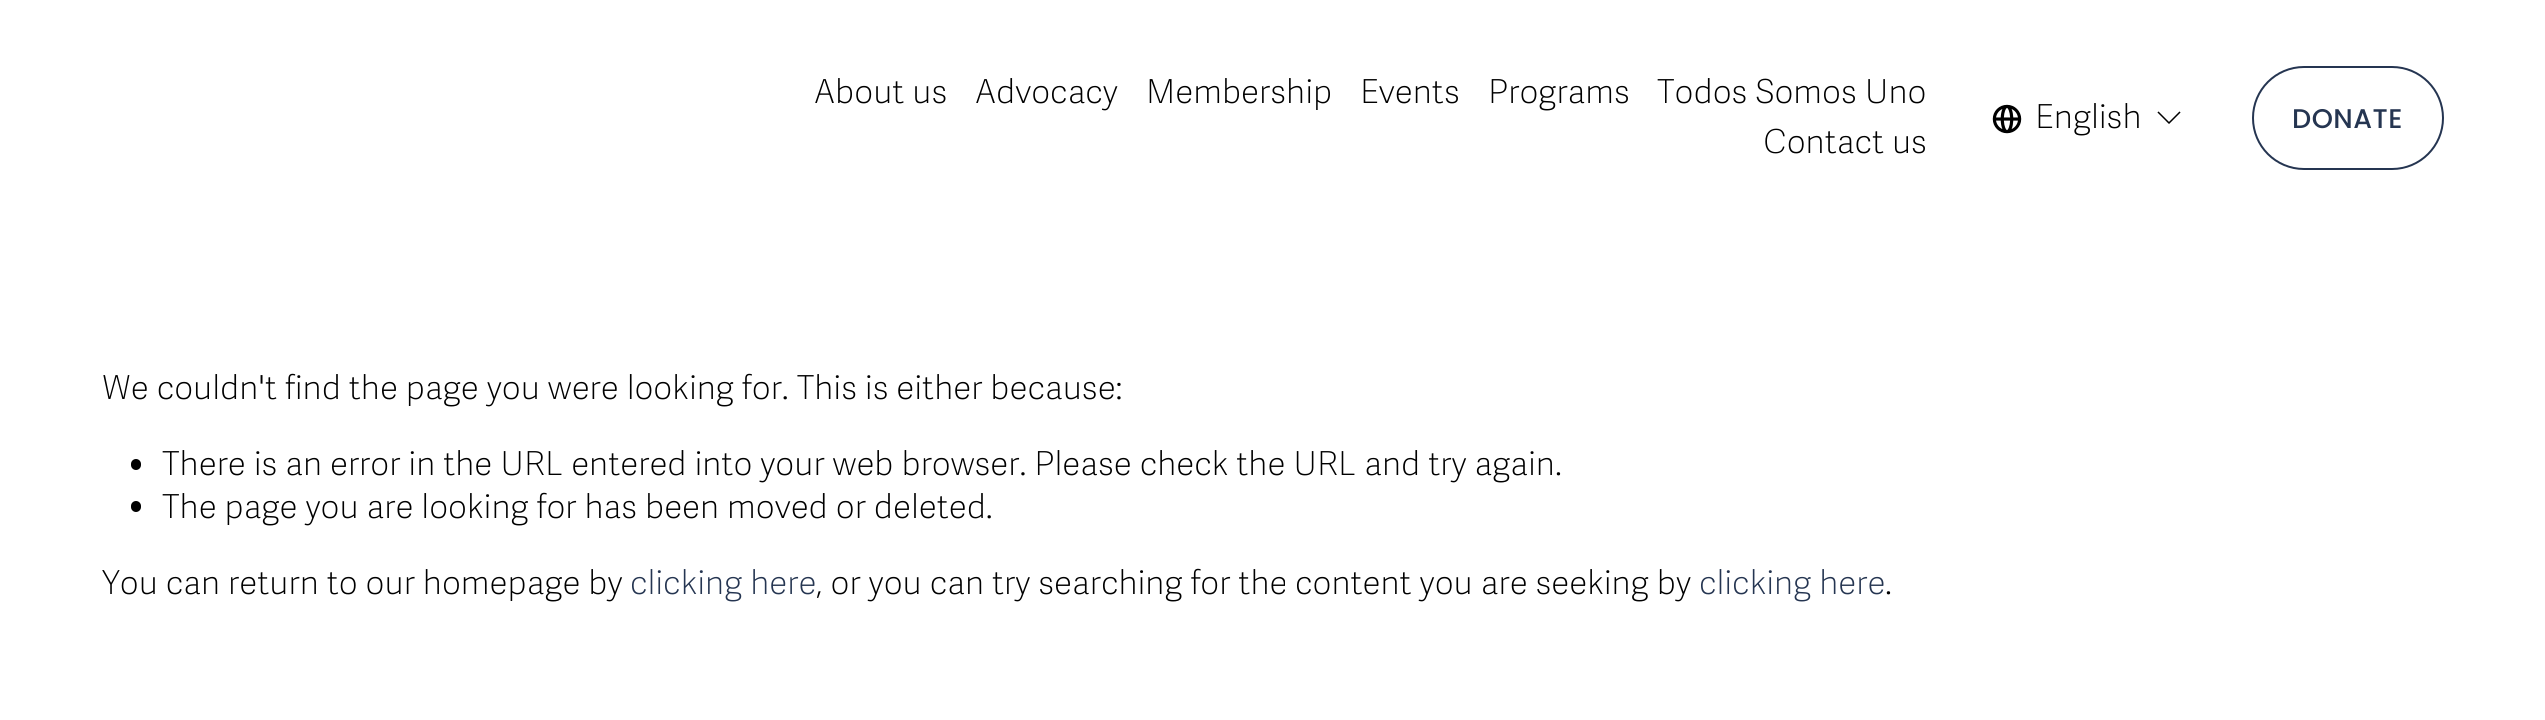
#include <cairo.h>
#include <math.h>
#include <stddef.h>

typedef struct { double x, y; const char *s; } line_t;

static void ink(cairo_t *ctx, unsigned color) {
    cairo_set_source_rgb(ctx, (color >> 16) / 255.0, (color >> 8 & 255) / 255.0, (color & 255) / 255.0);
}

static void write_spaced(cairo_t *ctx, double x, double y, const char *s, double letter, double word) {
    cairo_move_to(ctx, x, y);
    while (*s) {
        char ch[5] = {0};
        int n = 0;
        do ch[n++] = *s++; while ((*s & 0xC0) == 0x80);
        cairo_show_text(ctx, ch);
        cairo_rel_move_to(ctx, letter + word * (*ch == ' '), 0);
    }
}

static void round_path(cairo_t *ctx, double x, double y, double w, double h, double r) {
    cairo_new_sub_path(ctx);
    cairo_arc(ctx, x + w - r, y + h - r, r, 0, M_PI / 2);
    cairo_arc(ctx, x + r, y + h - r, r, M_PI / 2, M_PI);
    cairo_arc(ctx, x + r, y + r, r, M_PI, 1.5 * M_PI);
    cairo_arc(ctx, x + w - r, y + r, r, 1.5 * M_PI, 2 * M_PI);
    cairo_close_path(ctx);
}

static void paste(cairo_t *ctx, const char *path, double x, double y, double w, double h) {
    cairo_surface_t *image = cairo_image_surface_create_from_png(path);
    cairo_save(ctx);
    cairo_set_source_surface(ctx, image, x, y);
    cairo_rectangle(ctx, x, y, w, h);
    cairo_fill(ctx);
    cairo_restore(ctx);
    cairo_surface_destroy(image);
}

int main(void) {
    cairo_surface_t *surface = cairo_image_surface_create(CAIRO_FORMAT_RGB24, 2545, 720);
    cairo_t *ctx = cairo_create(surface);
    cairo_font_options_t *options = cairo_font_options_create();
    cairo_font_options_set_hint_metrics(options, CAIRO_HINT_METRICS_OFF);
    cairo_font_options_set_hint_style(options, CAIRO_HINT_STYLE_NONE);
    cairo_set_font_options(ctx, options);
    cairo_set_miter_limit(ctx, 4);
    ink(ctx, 0xFFFFFF);
    cairo_paint(ctx);
    cairo_select_font_face(ctx, "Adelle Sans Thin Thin", CAIRO_FONT_SLANT_NORMAL, CAIRO_FONT_WEIGHT_NORMAL);
    cairo_set_font_size(ctx, 33.05);
    ink(ctx, 0x000000);
    {
        static const line_t items[] = {
            {814, 103, "About us"},
            {975, 103, "Advocacy"},
            {1146, 103, "Membership"},
            {1360, 103, "Events"},
            {1488, 103, "Programs"},
            {1657, 103, "Todos Somos Uno"},
            {1763, 153, "Contact us"},
        };
        for (size_t i = 0; i < sizeof items / sizeof *items; i++) {
            cairo_move_to(ctx, items[i].x, items[i].y);
            cairo_show_text(ctx, items[i].s);
        }
    }
    paste(ctx, "media/1.png", 1992, 104, 30, 30);
    cairo_move_to(ctx, 2035, 128);
    cairo_show_text(ctx, "English");
    cairo_new_path(ctx);
    cairo_move_to(ctx, 2179.5, 112.5);
    cairo_line_to(ctx, 2169, 123);
    cairo_line_to(ctx, 2158.5, 112.5);
    cairo_set_line_width(ctx, 1.5);
    cairo_set_line_cap(ctx, CAIRO_LINE_CAP_SQUARE);
    cairo_stroke(ctx);
    round_path(ctx, 2253, 67, 190, 102, 51);
    ink(ctx, 0x253551);
    cairo_set_line_width(ctx, 2);
    cairo_set_line_cap(ctx, CAIRO_LINE_CAP_BUTT);
    cairo_stroke(ctx);
    cairo_select_font_face(ctx, "Poppins Medium", CAIRO_FONT_SLANT_NORMAL, CAIRO_FONT_WEIGHT_NORMAL);
    cairo_set_font_size(ctx, 27);
    write_spaced(ctx, 2292, 128, "DONATE", 0.5, 0);
    cairo_select_font_face(ctx, "Adelle Sans Thin Thin", CAIRO_FONT_SLANT_NORMAL, CAIRO_FONT_WEIGHT_NORMAL);
    cairo_set_font_size(ctx, 33.05);
    ink(ctx, 0x000000);
    cairo_move_to(ctx, 102, 399);
    cairo_show_text(ctx, "We couldn't find the page you were looking for. This is either because:");
    round_path(ctx, 131, 459, 10, 11, 5);
    cairo_fill(ctx);
    cairo_move_to(ctx, 162, 475);
    cairo_show_text(ctx, "There is an error in the URL entered into your web browser. Please check the URL and try again.");
    round_path(ctx, 131, 501, 10, 11, 5);
    cairo_fill(ctx);
    cairo_move_to(ctx, 162, 518);
    cairo_show_text(ctx, "The page you are looking for has been moved or deleted.");
    cairo_move_to(ctx, 102, 594);
    cairo_show_text(ctx, "You can return to our homepage by");
    ink(ctx, 0x253551);
    cairo_move_to(ctx, 630, 594);
    cairo_show_text(ctx, "clicking here");
    ink(ctx, 0x000000);
    cairo_move_to(ctx, 816, 594);
    cairo_show_text(ctx, ", or you can try searching for the");
    cairo_move_to(ctx, 1295, 594);
    cairo_show_text(ctx, "content you are seeking by");
    ink(ctx, 0x253551);
    cairo_move_to(ctx, 1699, 594);
    cairo_show_text(ctx, "clicking here");
    ink(ctx, 0x000000);
    cairo_move_to(ctx, 1885, 594);
    cairo_show_text(ctx, ".");
    cairo_surface_write_to_png(surface, "image.png");
    cairo_font_options_destroy(options);
    cairo_destroy(ctx);
    cairo_surface_destroy(surface);
    return 0;
}
